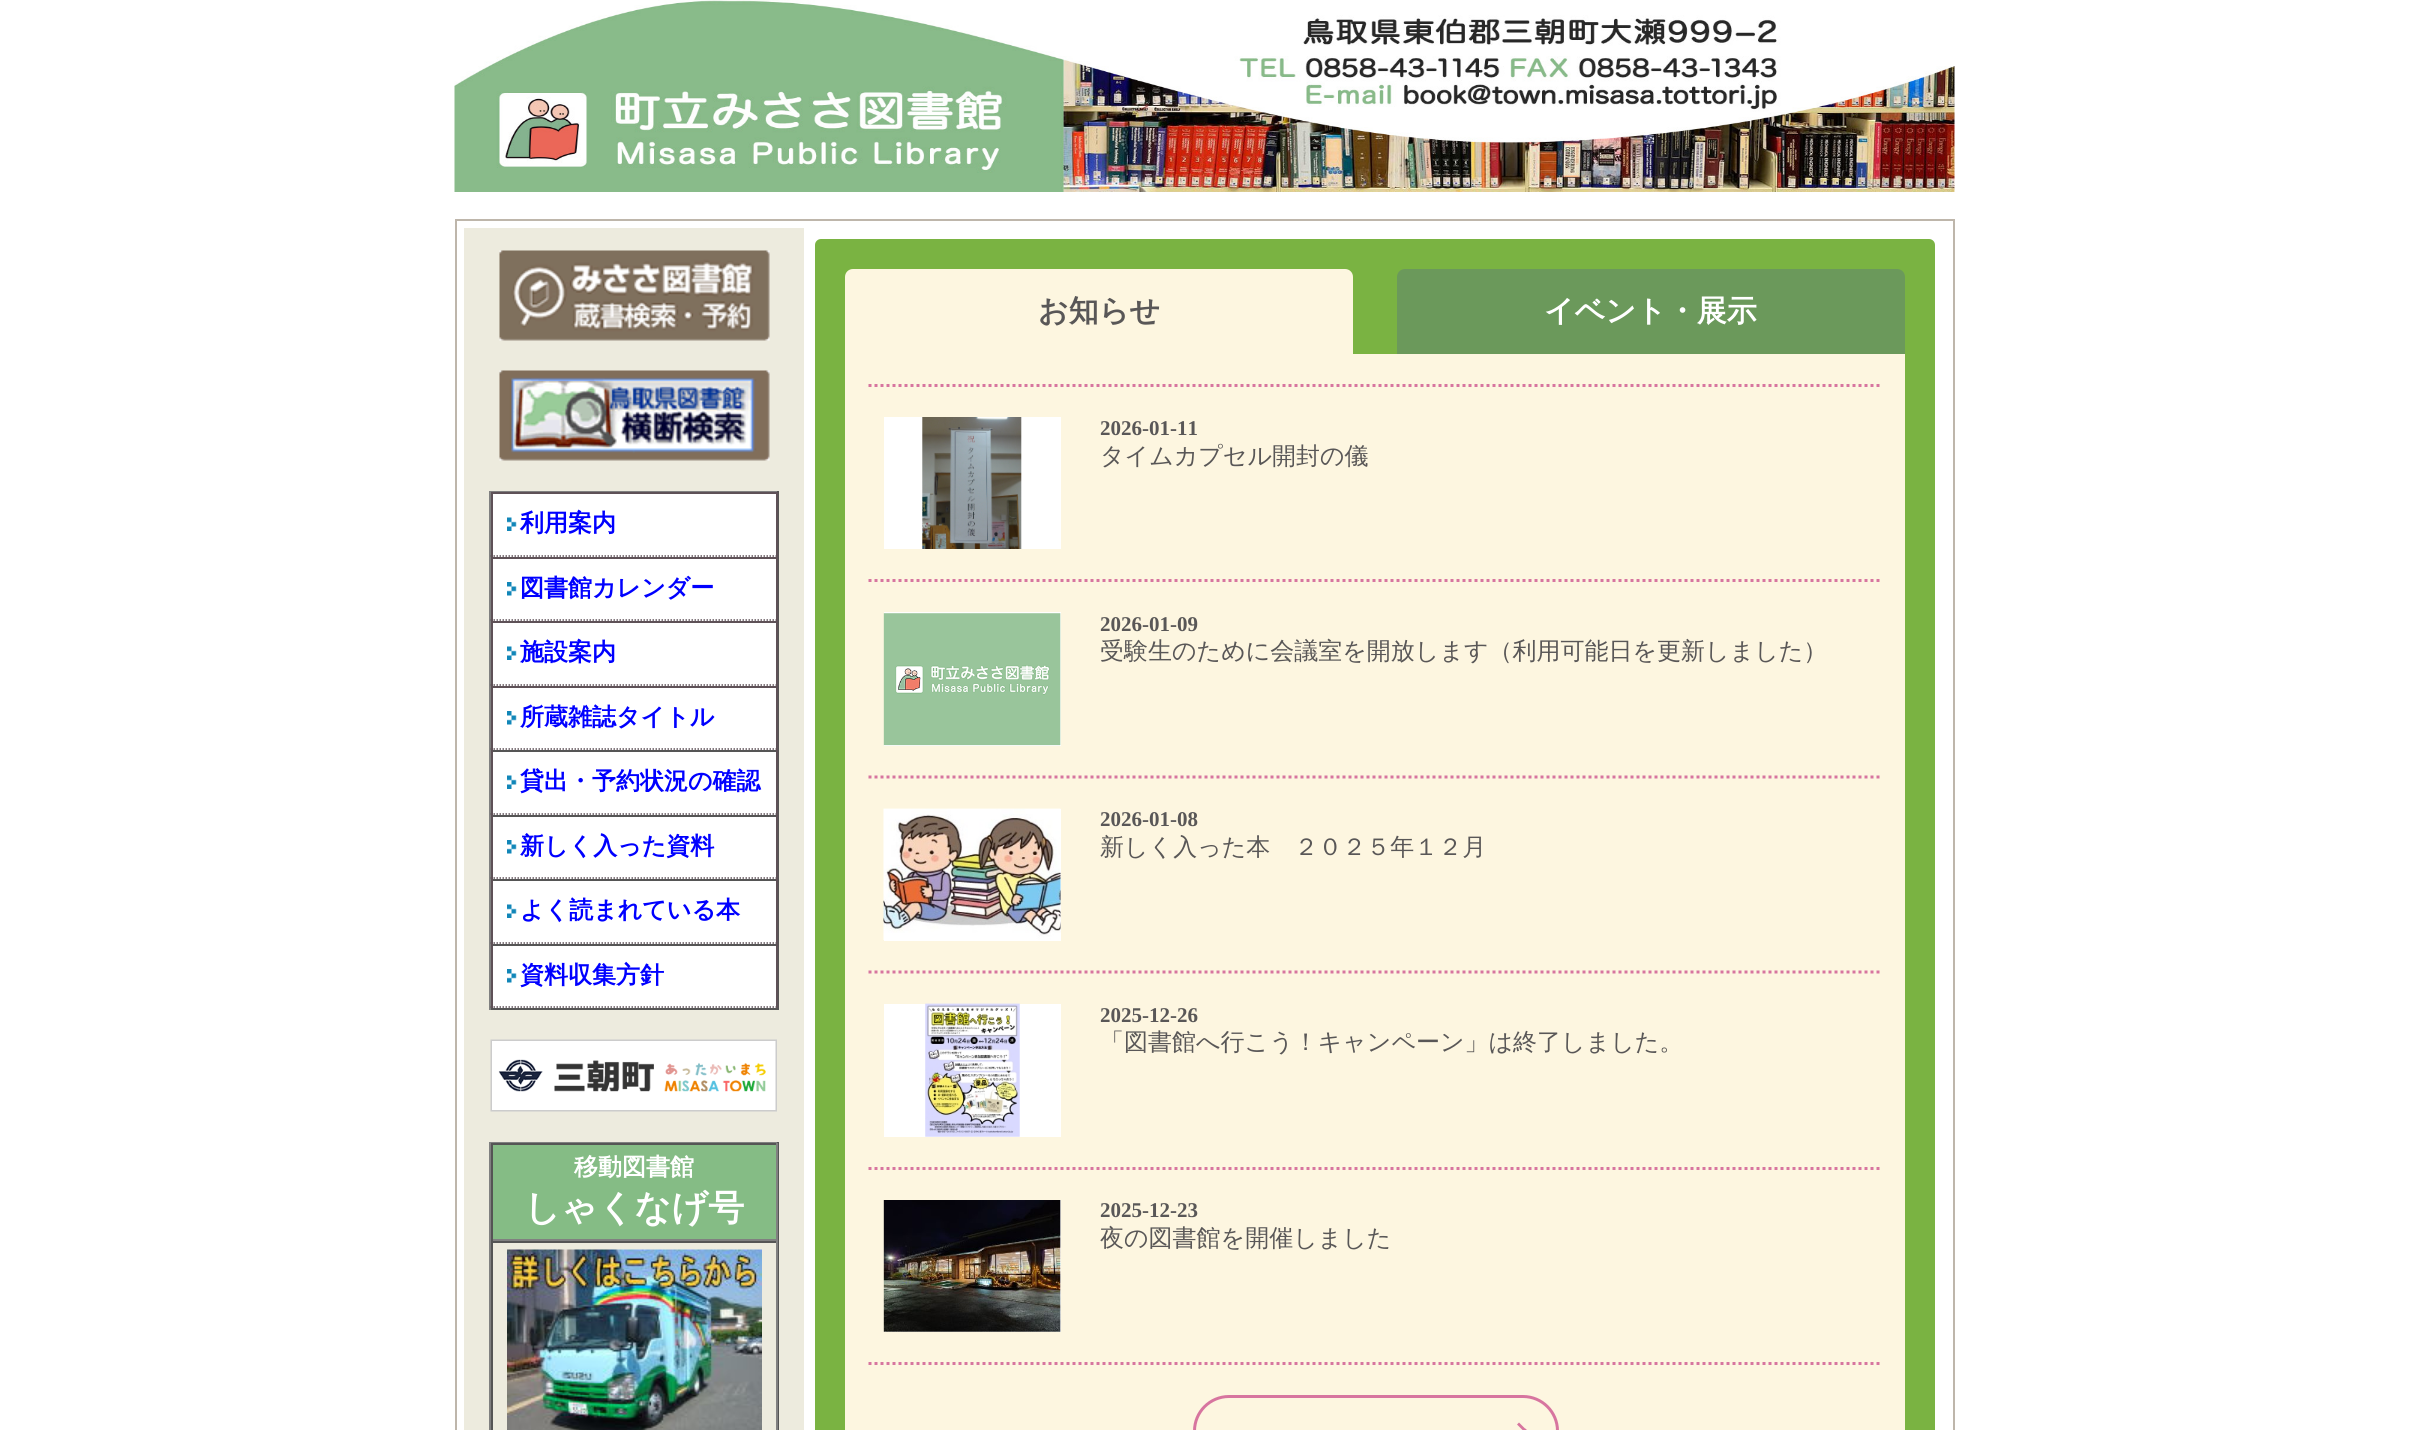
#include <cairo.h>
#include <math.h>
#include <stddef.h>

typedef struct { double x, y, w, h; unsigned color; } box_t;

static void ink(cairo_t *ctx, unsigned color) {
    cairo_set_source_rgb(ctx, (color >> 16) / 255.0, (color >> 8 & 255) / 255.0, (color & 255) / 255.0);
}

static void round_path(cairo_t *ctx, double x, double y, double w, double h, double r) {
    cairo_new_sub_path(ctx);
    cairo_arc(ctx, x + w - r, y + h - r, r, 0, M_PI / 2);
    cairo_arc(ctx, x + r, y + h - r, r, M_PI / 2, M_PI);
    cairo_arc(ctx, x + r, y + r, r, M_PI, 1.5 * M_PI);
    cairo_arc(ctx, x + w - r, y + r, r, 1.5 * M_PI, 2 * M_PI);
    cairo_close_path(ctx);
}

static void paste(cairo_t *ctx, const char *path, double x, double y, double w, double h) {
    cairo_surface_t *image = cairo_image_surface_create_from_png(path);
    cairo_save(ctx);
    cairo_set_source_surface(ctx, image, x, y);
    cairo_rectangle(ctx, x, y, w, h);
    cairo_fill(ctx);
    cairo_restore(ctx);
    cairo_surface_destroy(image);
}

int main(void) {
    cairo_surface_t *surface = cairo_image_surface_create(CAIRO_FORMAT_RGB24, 2409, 1430);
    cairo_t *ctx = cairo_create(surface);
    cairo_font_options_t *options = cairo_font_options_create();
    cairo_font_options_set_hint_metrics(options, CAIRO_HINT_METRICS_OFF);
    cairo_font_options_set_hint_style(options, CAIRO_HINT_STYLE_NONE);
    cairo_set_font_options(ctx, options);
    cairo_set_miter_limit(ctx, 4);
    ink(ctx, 0xFFFFFF);
    cairo_paint(ctx);
    paste(ctx, "media/1.png", 454, 0, 1501, 192);
    cairo_rectangle(ctx, 456, 220, 1498, 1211);
    ink(ctx, 0xBEB6AB);
    cairo_stroke(ctx);
    ink(ctx, 0xEDEBDE);
    cairo_rectangle(ctx, 464, 228, 340, 1202);
    cairo_fill(ctx);
    paste(ctx, "media/2.png", 499, 250, 271, 91);
    paste(ctx, "media/3.png", 499, 370, 271, 91);
    {
        static const box_t items[] = {
            {493, 494, 283, 514, 0xFFFFFF},
            {489, 491, 290, 1, 0x808080},
            {777, 491, 2, 519, 0x555555},
            {489, 1008, 290, 2, 0x555555},
            {489, 491, 2, 519, 0x808080},
            {491, 492, 286, 2, 0x5E5157},
            {776, 492, 2, 65, 0x5E5157},
        };
        for (size_t i = 0; i < sizeof items / sizeof *items; i++) {
            ink(ctx, items[i].color);
            cairo_rectangle(ctx, items[i].x, items[i].y, items[i].w, items[i].h);
            cairo_fill(ctx);
        }
    }
    cairo_new_path(ctx);
    cairo_move_to(ctx, 490.5, 556);
    cairo_line_to(ctx, 777, 556);
    cairo_set_line_width(ctx, 1.5);
    cairo_set_dash(ctx, (double[]){1.5, 1.5}, 2, 0);
    cairo_stroke(ctx);
    cairo_rectangle(ctx, 491, 492, 2, 65);
    cairo_fill(ctx);
    paste(ctx, "media/4.png", 507, 517, 10, 14);
    cairo_select_font_face(ctx, "WenQuanYi Zen Hei", CAIRO_FONT_SLANT_NORMAL, CAIRO_FONT_WEIGHT_BOLD);
    cairo_set_font_size(ctx, 24);
    ink(ctx, 0x0000FF);
    cairo_move_to(ctx, 520, 531);
    cairo_show_text(ctx, "利用案内");
    ink(ctx, 0x5E5157);
    cairo_rectangle(ctx, 491, 557, 286, 2);
    cairo_fill(ctx);
    cairo_rectangle(ctx, 776, 557, 2, 64);
    cairo_fill(ctx);
    cairo_new_path(ctx);
    cairo_move_to(ctx, 490.5, 620);
    cairo_line_to(ctx, 777, 620);
    cairo_stroke(ctx);
    cairo_rectangle(ctx, 491, 557, 2, 64);
    cairo_fill(ctx);
    paste(ctx, "media/5.png", 507, 582, 10, 14);
    ink(ctx, 0x0000FF);
    cairo_move_to(ctx, 520, 596);
    cairo_show_text(ctx, "図書館カレンダー");
    ink(ctx, 0x5E5157);
    cairo_rectangle(ctx, 491, 621, 286, 2);
    cairo_fill(ctx);
    cairo_rectangle(ctx, 776, 621, 2, 65);
    cairo_fill(ctx);
    cairo_new_path(ctx);
    cairo_move_to(ctx, 490.5, 685);
    cairo_line_to(ctx, 777, 685);
    cairo_stroke(ctx);
    cairo_rectangle(ctx, 491, 621, 2, 65);
    cairo_fill(ctx);
    paste(ctx, "media/4.png", 507, 646, 10, 14);
    ink(ctx, 0x0000FF);
    cairo_move_to(ctx, 520, 660);
    cairo_show_text(ctx, "施設案内");
    ink(ctx, 0x5E5157);
    cairo_rectangle(ctx, 491, 686, 286, 2);
    cairo_fill(ctx);
    cairo_rectangle(ctx, 776, 686, 2, 64);
    cairo_fill(ctx);
    cairo_new_path(ctx);
    cairo_move_to(ctx, 490.5, 749);
    cairo_line_to(ctx, 777, 749);
    cairo_stroke(ctx);
    cairo_rectangle(ctx, 491, 686, 2, 64);
    cairo_fill(ctx);
    paste(ctx, "media/5.png", 507, 711, 10, 14);
    ink(ctx, 0x0000FF);
    cairo_move_to(ctx, 520, 725);
    cairo_show_text(ctx, "所蔵雑誌タイトル");
    ink(ctx, 0x555555);
    cairo_rectangle(ctx, 491, 750, 286, 2);
    cairo_fill(ctx);
    ink(ctx, 0x5E5157);
    cairo_rectangle(ctx, 776, 750, 2, 65);
    cairo_fill(ctx);
    cairo_new_path(ctx);
    cairo_move_to(ctx, 490.5, 814);
    cairo_line_to(ctx, 777, 814);
    cairo_stroke(ctx);
    cairo_rectangle(ctx, 491, 750, 2, 65);
    cairo_fill(ctx);
    paste(ctx, "media/4.png", 507, 775, 10, 14);
    ink(ctx, 0x0000FF);
    cairo_move_to(ctx, 520, 789);
    cairo_show_text(ctx, "貸出・予約状況の確認");
    ink(ctx, 0x555555);
    cairo_rectangle(ctx, 491, 815, 286, 2);
    cairo_fill(ctx);
    ink(ctx, 0x5E5157);
    cairo_rectangle(ctx, 776, 815, 2, 64);
    cairo_fill(ctx);
    cairo_new_path(ctx);
    cairo_move_to(ctx, 490.5, 878);
    cairo_line_to(ctx, 777, 878);
    cairo_stroke(ctx);
    cairo_rectangle(ctx, 491, 815, 2, 64);
    cairo_fill(ctx);
    paste(ctx, "media/5.png", 507, 840, 10, 14);
    ink(ctx, 0x0000FF);
    cairo_move_to(ctx, 520, 854);
    cairo_show_text(ctx, "新しく入った資料");
    ink(ctx, 0x555555);
    cairo_rectangle(ctx, 491, 879, 286, 2);
    cairo_fill(ctx);
    ink(ctx, 0x5E5157);
    cairo_rectangle(ctx, 776, 879, 2, 65);
    cairo_fill(ctx);
    cairo_new_path(ctx);
    cairo_move_to(ctx, 490.5, 943);
    cairo_line_to(ctx, 777, 943);
    cairo_stroke(ctx);
    cairo_rectangle(ctx, 491, 879, 2, 65);
    cairo_fill(ctx);
    paste(ctx, "media/4.png", 507, 904, 10, 14);
    ink(ctx, 0x0000FF);
    cairo_move_to(ctx, 520, 918);
    cairo_show_text(ctx, "よく読まれている本");
    ink(ctx, 0x555555);
    cairo_rectangle(ctx, 491, 944, 286, 2);
    cairo_fill(ctx);
    ink(ctx, 0x5E5157);
    cairo_rectangle(ctx, 776, 944, 2, 64);
    cairo_fill(ctx);
    cairo_new_path(ctx);
    cairo_move_to(ctx, 490.5, 1007);
    cairo_line_to(ctx, 777, 1007);
    cairo_stroke(ctx);
    cairo_rectangle(ctx, 491, 944, 2, 64);
    cairo_fill(ctx);
    paste(ctx, "media/5.png", 507, 969, 10, 14);
    ink(ctx, 0x0000FF);
    cairo_move_to(ctx, 520, 983);
    cairo_show_text(ctx, "資料収集方針");
    paste(ctx, "media/6.png", 490, 1039, 287, 73);
    {
        static const box_t items[] = {
            {489, 1142, 290, 1, 0x808080},
            {777, 1142, 2, 288, 0x555555},
            {489, 1142, 2, 288, 0x808080},
            {493, 1145, 283, 94, 0x85BC85},
            {491, 1143, 286, 2, 0x555555},
            {776, 1143, 2, 98, 0x808080},
            {491, 1239, 286, 2, 0x808080},
            {491, 1143, 2, 98, 0x555555},
        };
        for (size_t i = 0; i < sizeof items / sizeof *items; i++) {
            ink(ctx, items[i].color);
            cairo_rectangle(ctx, items[i].x, items[i].y, items[i].w, items[i].h);
            cairo_fill(ctx);
        }
    }
    ink(ctx, 0xFFFFFF);
    cairo_move_to(ctx, 574, 1175);
    cairo_show_text(ctx, "移動図書館");
    cairo_set_font_size(ctx, 36);
    cairo_move_to(ctx, 524, 1220);
    cairo_show_text(ctx, "しゃくなげ号");
    {
        static const box_t items[] = {
            {491, 1241, 286, 2, 0x555555},
            {776, 1241, 2, 189, 0x808080},
            {491, 1241, 2, 189, 0x555555},
        };
        for (size_t i = 0; i < sizeof items / sizeof *items; i++) {
            ink(ctx, items[i].color);
            cairo_rectangle(ctx, items[i].x, items[i].y, items[i].w, items[i].h);
            cairo_fill(ctx);
        }
    }
    paste(ctx, "media/7.png", 507, 1249, 255, 181);
    ink(ctx, 0x7AB342);
    round_path(ctx, 815, 239, 1120, 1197, 6);
    cairo_fill(ctx);
    ink(ctx, 0xFDF6E0);
    cairo_new_path(ctx);
    cairo_move_to(ctx, 853, 269);
    cairo_line_to(ctx, 1345, 269);
    cairo_curve_to(ctx, 1349.5, 269, 1353, 272.5, 1353, 277);
    cairo_line_to(ctx, 1353, 354);
    cairo_line_to(ctx, 845, 354);
    cairo_line_to(ctx, 845, 277);
    cairo_curve_to(ctx, 845, 272.5, 848.5, 269, 853, 269);
    cairo_close_path(ctx);
    cairo_fill(ctx);
    cairo_set_font_size(ctx, 30);
    ink(ctx, 0x595757);
    cairo_move_to(ctx, 1038, 321);
    cairo_show_text(ctx, "お知らせ");
    ink(ctx, 0x6B995B);
    cairo_new_path(ctx);
    cairo_move_to(ctx, 1405, 269);
    cairo_line_to(ctx, 1897, 269);
    cairo_curve_to(ctx, 1901.5, 269, 1905, 272.5, 1905, 277);
    cairo_line_to(ctx, 1905, 354);
    cairo_line_to(ctx, 1397, 354);
    cairo_line_to(ctx, 1397, 277);
    cairo_curve_to(ctx, 1397, 272.5, 1400.5, 269, 1405, 269);
    cairo_close_path(ctx);
    cairo_fill(ctx);
    ink(ctx, 0xFFFFFF);
    cairo_move_to(ctx, 1544, 321);
    cairo_show_text(ctx, "イベント・展示");
    ink(ctx, 0xFDF6E0);
    cairo_rectangle(ctx, 845, 354, 1060, 1076);
    cairo_fill(ctx);
    cairo_new_path(ctx);
    cairo_move_to(ctx, 868.5, 385.5);
    cairo_line_to(ctx, 1881, 385.5);
    ink(ctx, 0xD7759F);
    cairo_set_line_width(ctx, 3);
    cairo_set_dash(ctx, (double[]){3, 3}, 2, 0);
    cairo_stroke(ctx);
    cairo_new_path(ctx);
    cairo_move_to(ctx, 868.5, 580.5);
    cairo_line_to(ctx, 1881, 580.5);
    cairo_stroke(ctx);
    ink(ctx, 0xFFFFFF);
    cairo_rectangle(ctx, 884, 417, 177, 132);
    cairo_fill(ctx);
    paste(ctx, "media/8.png", 922, 417, 100, 132);
    cairo_select_font_face(ctx, "Liberation Serif", CAIRO_FONT_SLANT_NORMAL, CAIRO_FONT_WEIGHT_BOLD);
    cairo_set_font_size(ctx, 21);
    ink(ctx, 0x595757);
    cairo_move_to(ctx, 1100, 435);
    cairo_show_text(ctx, "2026-01-11");
    cairo_select_font_face(ctx, "WenQuanYi Zen Hei Medium", CAIRO_FONT_SLANT_NORMAL, CAIRO_FONT_WEIGHT_NORMAL);
    cairo_set_font_size(ctx, 24);
    cairo_move_to(ctx, 1100, 464);
    cairo_show_text(ctx, "タイムカプセル開封の儀");
    cairo_new_path(ctx);
    cairo_move_to(ctx, 868.5, 777);
    cairo_line_to(ctx, 1881, 777);
    ink(ctx, 0xD7759F);
    cairo_stroke(ctx);
    ink(ctx, 0xFFFFFF);
    cairo_rectangle(ctx, 884, 612, 177, 134);
    cairo_fill(ctx);
    paste(ctx, "media/9.png", 883, 613, 178, 133);
    cairo_select_font_face(ctx, "Liberation Serif", CAIRO_FONT_SLANT_NORMAL, CAIRO_FONT_WEIGHT_BOLD);
    cairo_set_font_size(ctx, 21);
    ink(ctx, 0x595757);
    cairo_move_to(ctx, 1100, 631);
    cairo_show_text(ctx, "2026-01-09");
    cairo_select_font_face(ctx, "WenQuanYi Zen Hei Medium", CAIRO_FONT_SLANT_NORMAL, CAIRO_FONT_WEIGHT_NORMAL);
    cairo_set_font_size(ctx, 24);
    cairo_move_to(ctx, 1100, 659);
    cairo_show_text(ctx, "受験生のために会議室を開放します（利用可能日を更新しました）");
    cairo_new_path(ctx);
    cairo_move_to(ctx, 868.5, 972);
    cairo_line_to(ctx, 1881, 972);
    ink(ctx, 0xD7759F);
    cairo_stroke(ctx);
    ink(ctx, 0xFFFFFF);
    cairo_rectangle(ctx, 884, 809, 177, 132);
    cairo_fill(ctx);
    paste(ctx, "media/10.png", 883, 808, 178, 132);
    cairo_select_font_face(ctx, "Liberation Serif", CAIRO_FONT_SLANT_NORMAL, CAIRO_FONT_WEIGHT_BOLD);
    cairo_set_font_size(ctx, 21);
    ink(ctx, 0x595757);
    cairo_move_to(ctx, 1100, 826);
    cairo_show_text(ctx, "2026-01-08");
    cairo_select_font_face(ctx, "WenQuanYi Zen Hei Medium", CAIRO_FONT_SLANT_NORMAL, CAIRO_FONT_WEIGHT_NORMAL);
    cairo_set_font_size(ctx, 24);
    cairo_move_to(ctx, 1100, 855);
    cairo_show_text(ctx, "新しく入った本　２０２５年１２月");
    cairo_new_path(ctx);
    cairo_move_to(ctx, 868.5, 1168.5);
    cairo_line_to(ctx, 1881, 1168.5);
    ink(ctx, 0xD7759F);
    cairo_stroke(ctx);
    ink(ctx, 0xFFFFFF);
    cairo_rectangle(ctx, 884, 1004, 177, 133);
    cairo_fill(ctx);
    paste(ctx, "media/11.png", 925, 1003, 95, 134);
    cairo_select_font_face(ctx, "Liberation Serif", CAIRO_FONT_SLANT_NORMAL, CAIRO_FONT_WEIGHT_BOLD);
    cairo_set_font_size(ctx, 21);
    ink(ctx, 0x595757);
    cairo_move_to(ctx, 1100, 1022);
    cairo_show_text(ctx, "2025-12-26");
    cairo_select_font_face(ctx, "WenQuanYi Zen Hei Medium", CAIRO_FONT_SLANT_NORMAL, CAIRO_FONT_WEIGHT_NORMAL);
    cairo_set_font_size(ctx, 24);
    cairo_move_to(ctx, 1100, 1050);
    cairo_show_text(ctx, "「図書館へ行こう！キャンペーン」は終了しました。");
    cairo_new_path(ctx);
    cairo_move_to(ctx, 868.5, 1363.5);
    cairo_line_to(ctx, 1881, 1363.5);
    ink(ctx, 0xD7759F);
    cairo_stroke(ctx);
    ink(ctx, 0xFFFFFF);
    cairo_rectangle(ctx, 884, 1200, 177, 132);
    cairo_fill(ctx);
    paste(ctx, "media/12.png", 883, 1200, 178, 132);
    cairo_select_font_face(ctx, "Liberation Serif", CAIRO_FONT_SLANT_NORMAL, CAIRO_FONT_WEIGHT_BOLD);
    cairo_set_font_size(ctx, 21);
    ink(ctx, 0x595757);
    cairo_move_to(ctx, 1100, 1217);
    cairo_show_text(ctx, "2025-12-23");
    cairo_select_font_face(ctx, "WenQuanYi Zen Hei Medium", CAIRO_FONT_SLANT_NORMAL, CAIRO_FONT_WEIGHT_NORMAL);
    cairo_set_font_size(ctx, 24);
    cairo_move_to(ctx, 1100, 1246);
    cairo_show_text(ctx, "夜の図書館を開催しました");
    round_path(ctx, 1194.5, 1396.5, 363, 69, 34.5);
    ink(ctx, 0xD7759F);
    cairo_set_dash(ctx, NULL, 0, 0);
    cairo_stroke(ctx);
    cairo_new_path(ctx);
    cairo_move_to(ctx, 1519, 1422.5);
    cairo_line_to(ctx, 1527.5, 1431);
    cairo_line_to(ctx, 1525.5, 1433);
    cairo_line_to(ctx, 1517, 1424.5);
    cairo_close_path(ctx);
    cairo_fill(ctx);
    cairo_new_path(ctx);
    cairo_move_to(ctx, 1525.5, 1428.5);
    cairo_line_to(ctx, 1527.5, 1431);
    cairo_line_to(ctx, 1519, 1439.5);
    cairo_line_to(ctx, 1517, 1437);
    cairo_close_path(ctx);
    cairo_fill(ctx);
    cairo_surface_write_to_png(surface, "image.png");
    cairo_font_options_destroy(options);
    cairo_destroy(ctx);
    cairo_surface_destroy(surface);
    return 0;
}
